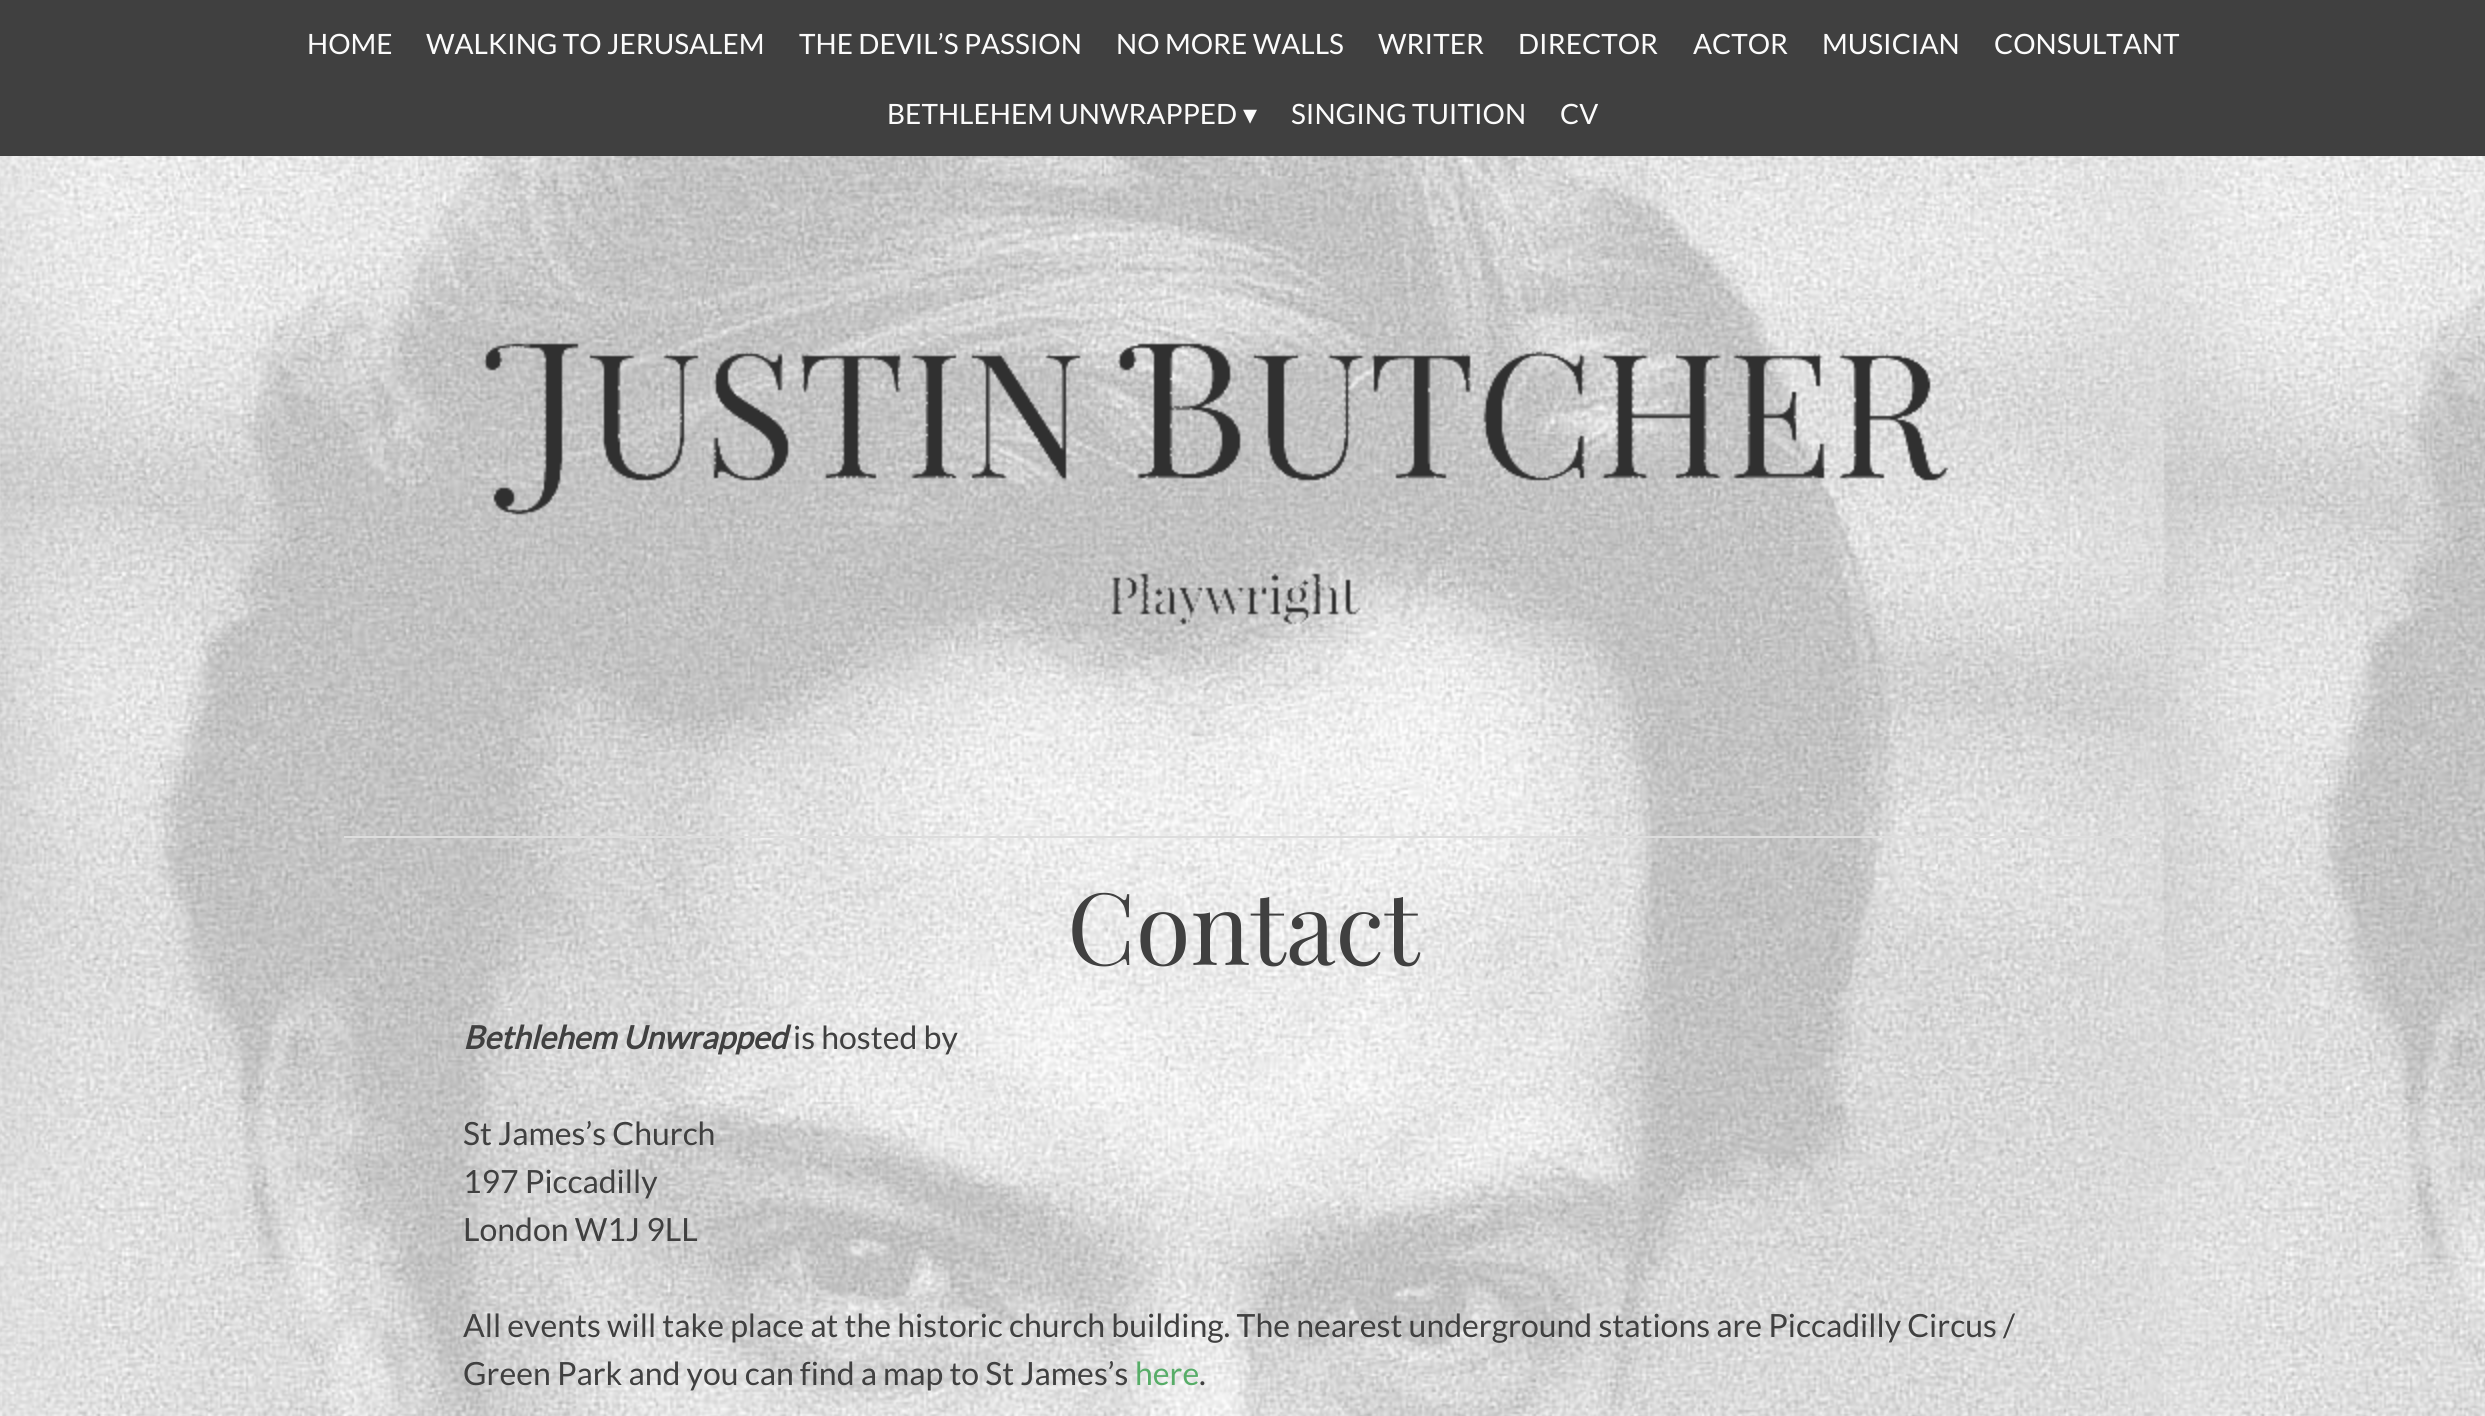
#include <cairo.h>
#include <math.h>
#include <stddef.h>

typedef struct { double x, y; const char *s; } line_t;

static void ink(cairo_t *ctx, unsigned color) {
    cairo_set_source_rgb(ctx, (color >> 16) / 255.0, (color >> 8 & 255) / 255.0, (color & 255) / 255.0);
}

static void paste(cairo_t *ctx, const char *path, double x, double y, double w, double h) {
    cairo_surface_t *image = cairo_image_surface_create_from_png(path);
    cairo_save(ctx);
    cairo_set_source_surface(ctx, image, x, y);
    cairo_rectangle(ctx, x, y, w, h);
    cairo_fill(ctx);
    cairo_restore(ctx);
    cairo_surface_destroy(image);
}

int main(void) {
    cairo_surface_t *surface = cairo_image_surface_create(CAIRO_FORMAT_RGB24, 2485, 1416);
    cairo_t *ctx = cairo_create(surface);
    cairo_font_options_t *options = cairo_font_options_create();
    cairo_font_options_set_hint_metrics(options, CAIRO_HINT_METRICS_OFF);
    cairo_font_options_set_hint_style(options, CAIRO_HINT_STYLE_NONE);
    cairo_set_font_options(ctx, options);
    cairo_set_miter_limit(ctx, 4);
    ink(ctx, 0xFFFFFF);
    cairo_paint(ctx);
    paste(ctx, "media/1.png", 0, 156, 2485, 1260);
    ink(ctx, 0x404040);
    cairo_rectangle(ctx, 0, 0, 2485, 156);
    cairo_fill(ctx);
    cairo_select_font_face(ctx, "Lato", CAIRO_FONT_SLANT_NORMAL, CAIRO_FONT_WEIGHT_NORMAL);
    cairo_set_font_size(ctx, 28);
    ink(ctx, 0xFBFBFB);
    {
        static const line_t items[] = {
            {307, 54, "HOME"},
            {426, 54, "WALKING TO JERUSALEM"},
            {799, 54, "THE DEVIL’S PASSION"},
            {1116, 54, "NO MORE WALLS"},
            {1378, 54, "WRITER"},
            {1518, 54, "DIRECTOR"},
            {1693, 54, "ACTOR"},
            {1822, 54, "MUSICIAN"},
            {1994, 54, "CONSULTANT"},
            {887, 124, "BETHLEHEM UNWRAPPED"},
        };
        for (size_t i = 0; i < sizeof items / sizeof *items; i++) {
            cairo_move_to(ctx, items[i].x, items[i].y);
            cairo_show_text(ctx, items[i].s);
        }
    }
    cairo_select_font_face(ctx, "DejaVu Sans", CAIRO_FONT_SLANT_NORMAL, CAIRO_FONT_WEIGHT_NORMAL);
    cairo_move_to(ctx, 1243, 124);
    cairo_show_text(ctx, "▾");
    cairo_select_font_face(ctx, "Lato", CAIRO_FONT_SLANT_NORMAL, CAIRO_FONT_WEIGHT_NORMAL);
    cairo_move_to(ctx, 1291, 124);
    cairo_show_text(ctx, "SINGING TUITION");
    cairo_move_to(ctx, 1560, 124);
    cairo_show_text(ctx, "CV");
    paste(ctx, "media/2.png", 483, 343, 1466, 282);
    ink(ctx, 0xDDDDDD);
    cairo_rectangle(ctx, 344, 836, 1800, 2);
    cairo_fill(ctx);
    cairo_select_font_face(ctx, "Playfair Display", CAIRO_FONT_SLANT_NORMAL, CAIRO_FONT_WEIGHT_NORMAL);
    cairo_set_font_size(ctx, 100);
    ink(ctx, 0x404040);
    cairo_move_to(ctx, 1067, 965);
    cairo_show_text(ctx, "Contact");
    cairo_select_font_face(ctx, "Lato", CAIRO_FONT_SLANT_ITALIC, CAIRO_FONT_WEIGHT_BOLD);
    cairo_set_font_size(ctx, 32);
    cairo_move_to(ctx, 463, 1049);
    cairo_show_text(ctx, "Bethlehem Unwrapped");
    cairo_select_font_face(ctx, "Lato", CAIRO_FONT_SLANT_NORMAL, CAIRO_FONT_WEIGHT_NORMAL);
    {
        static const line_t items[] = {
            {793, 1049, "is hosted by"},
            {463, 1145, "St James’s Church"},
            {463, 1193, "197 Piccadilly"},
            {463, 1241, "London W1J 9LL"},
            {463, 1337, "All events will take place at the historic church building. The nearest underground stations are Piccadilly Circus /"},
            {463, 1385, "Green Park and you can find a map to St James’s"},
        };
        for (size_t i = 0; i < sizeof items / sizeof *items; i++) {
            cairo_move_to(ctx, items[i].x, items[i].y);
            cairo_show_text(ctx, items[i].s);
        }
    }
    ink(ctx, 0x57AD68);
    cairo_move_to(ctx, 1135, 1385);
    cairo_show_text(ctx, "here");
    ink(ctx, 0x404040);
    cairo_move_to(ctx, 1199, 1385);
    cairo_show_text(ctx, ".");
    cairo_surface_write_to_png(surface, "image.png");
    cairo_font_options_destroy(options);
    cairo_destroy(ctx);
    cairo_surface_destroy(surface);
    return 0;
}
